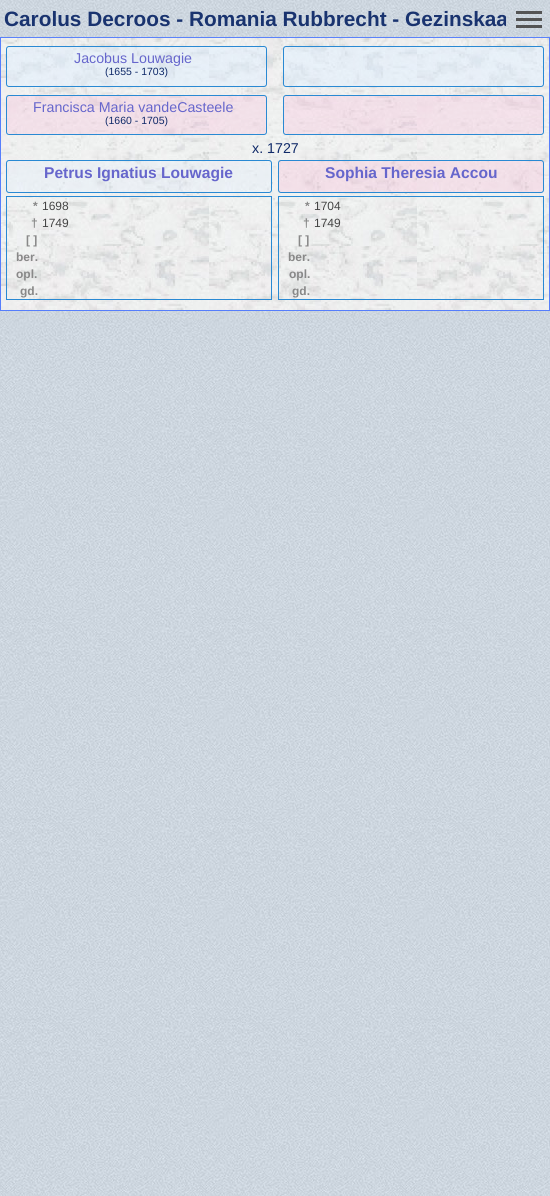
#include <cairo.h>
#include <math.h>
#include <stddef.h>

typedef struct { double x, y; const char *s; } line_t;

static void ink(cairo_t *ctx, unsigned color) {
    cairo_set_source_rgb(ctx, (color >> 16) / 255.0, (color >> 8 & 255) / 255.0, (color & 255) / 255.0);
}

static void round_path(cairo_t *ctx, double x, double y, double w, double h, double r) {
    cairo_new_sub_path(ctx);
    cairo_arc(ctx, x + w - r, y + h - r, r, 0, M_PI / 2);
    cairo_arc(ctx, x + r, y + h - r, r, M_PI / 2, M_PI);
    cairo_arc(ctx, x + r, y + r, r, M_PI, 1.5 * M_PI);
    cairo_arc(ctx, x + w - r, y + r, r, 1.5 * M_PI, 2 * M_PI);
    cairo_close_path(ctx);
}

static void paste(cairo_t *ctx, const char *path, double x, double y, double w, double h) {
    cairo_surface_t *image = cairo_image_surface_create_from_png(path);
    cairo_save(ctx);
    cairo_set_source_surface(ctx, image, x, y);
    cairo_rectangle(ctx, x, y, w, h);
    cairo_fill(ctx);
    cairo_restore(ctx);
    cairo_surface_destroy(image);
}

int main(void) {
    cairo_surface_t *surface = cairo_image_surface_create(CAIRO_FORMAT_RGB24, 550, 1196);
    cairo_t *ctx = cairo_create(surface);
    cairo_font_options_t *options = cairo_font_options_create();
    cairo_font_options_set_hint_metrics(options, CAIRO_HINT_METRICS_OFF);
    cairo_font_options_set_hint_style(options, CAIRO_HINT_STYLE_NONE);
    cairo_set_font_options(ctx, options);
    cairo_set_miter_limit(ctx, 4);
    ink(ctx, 0xFFFFFF);
    cairo_paint(ctx);
    paste(ctx, "media/1.png", 0, 0, 550, 1196);
    paste(ctx, "media/5.png", 1, 38, 548, 272);
    cairo_rectangle(ctx, 0.5, 37.5, 549, 273);
    ink(ctx, 0x567EFC);
    cairo_set_line_width(ctx, 1);
    cairo_stroke(ctx);
    paste(ctx, "media/2.png", 0, 37, 550, 1);
    cairo_set_source_rgba(ctx, 0.337, 0.494, 0.988, 0.95);
    cairo_rectangle(ctx, 0, 37, 550, 1);
    cairo_fill(ctx);
    cairo_select_font_face(ctx, "Liberation Sans", CAIRO_FONT_SLANT_NORMAL, CAIRO_FONT_WEIGHT_BOLD);
    cairo_set_font_size(ctx, 20.8);
    ink(ctx, 0x19336F);
    cairo_move_to(ctx, 4, 26);
    cairo_show_text(ctx, "Carolus Decroos - Romania Rubbrecht - Gezinskaa");
    paste(ctx, "media/3.png", 506, 0, 44, 35);
    paste(ctx, "media/4.png", 516, 11, 26, 17);
    cairo_set_source_rgba(ctx, 0.878, 0.937, 0.996, 0.51);
    round_path(ctx, 6.5, 46.5, 260, 40, 2.5);
    cairo_fill_preserve(ctx);
    ink(ctx, 0x2989D3);
    cairo_stroke(ctx);
    cairo_select_font_face(ctx, "Liberation Sans", CAIRO_FONT_SLANT_NORMAL, CAIRO_FONT_WEIGHT_NORMAL);
    cairo_set_font_size(ctx, 14.25);
    ink(ctx, 0x6666CC);
    cairo_move_to(ctx, 74, 63);
    cairo_show_text(ctx, "Jacobus Louwagie");
    cairo_set_font_size(ctx, 10.5);
    ink(ctx, 0x102A69);
    cairo_move_to(ctx, 105, 75);
    cairo_show_text(ctx, "(1655 - 1703)");
    cairo_set_source_rgba(ctx, 0.878, 0.937, 0.996, 0.51);
    round_path(ctx, 283.5, 46.5, 260, 40, 2.5);
    cairo_fill_preserve(ctx);
    ink(ctx, 0x2989D3);
    cairo_stroke(ctx);
    cairo_set_source_rgba(ctx, 0.988, 0.718, 0.839, 0.28);
    round_path(ctx, 6.5, 95.5, 260, 39, 2.5);
    cairo_fill_preserve(ctx);
    ink(ctx, 0x2989D3);
    cairo_stroke(ctx);
    cairo_set_font_size(ctx, 14.25);
    ink(ctx, 0x6666CC);
    cairo_move_to(ctx, 33, 112);
    cairo_show_text(ctx, "Francisca Maria vandeCasteele");
    cairo_set_font_size(ctx, 10.5);
    ink(ctx, 0x102A69);
    cairo_move_to(ctx, 105, 124);
    cairo_show_text(ctx, "(1660 - 1705)");
    cairo_set_source_rgba(ctx, 0.988, 0.718, 0.839, 0.28);
    round_path(ctx, 283.5, 95.5, 260, 39, 2.5);
    cairo_fill_preserve(ctx);
    ink(ctx, 0x2989D3);
    cairo_stroke(ctx);
    cairo_set_font_size(ctx, 14.25);
    ink(ctx, 0x102A69);
    cairo_move_to(ctx, 252, 153);
    cairo_show_text(ctx, "x. 1727");
    cairo_set_source_rgba(ctx, 0.878, 0.937, 0.996, 0.3);
    round_path(ctx, 6.5, 160.5, 265, 32, 2.5);
    cairo_fill_preserve(ctx);
    ink(ctx, 0x2989D3);
    cairo_stroke(ctx);
    cairo_select_font_face(ctx, "Liberation Sans", CAIRO_FONT_SLANT_NORMAL, CAIRO_FONT_WEIGHT_BOLD);
    cairo_set_font_size(ctx, 15.6);
    ink(ctx, 0x6666CC);
    cairo_move_to(ctx, 44, 178);
    cairo_show_text(ctx, "Petrus Ignatius Louwagie");
    cairo_set_source_rgba(ctx, 0.988, 0.718, 0.839, 0.3);
    round_path(ctx, 278.5, 160.5, 265, 32, 2.5);
    cairo_fill_preserve(ctx);
    ink(ctx, 0x2989D3);
    cairo_stroke(ctx);
    ink(ctx, 0x6666CC);
    cairo_move_to(ctx, 325, 178);
    cairo_show_text(ctx, "Sophia Theresia Accou");
    cairo_rectangle(ctx, 6.5, 196.5, 265, 103);
    ink(ctx, 0x2989D3);
    cairo_stroke(ctx);
    cairo_set_font_size(ctx, 12);
    ink(ctx, 0x888888);
    cairo_move_to(ctx, 33, 210);
    cairo_show_text(ctx, "*");
    cairo_select_font_face(ctx, "Liberation Sans", CAIRO_FONT_SLANT_NORMAL, CAIRO_FONT_WEIGHT_NORMAL);
    ink(ctx, 0x444444);
    cairo_move_to(ctx, 42, 210);
    cairo_show_text(ctx, "1698");
    cairo_select_font_face(ctx, "Liberation Sans", CAIRO_FONT_SLANT_NORMAL, CAIRO_FONT_WEIGHT_BOLD);
    ink(ctx, 0x888888);
    cairo_move_to(ctx, 31, 227);
    cairo_show_text(ctx, "†");
    cairo_select_font_face(ctx, "Liberation Sans", CAIRO_FONT_SLANT_NORMAL, CAIRO_FONT_WEIGHT_NORMAL);
    ink(ctx, 0x444444);
    cairo_move_to(ctx, 42, 227);
    cairo_show_text(ctx, "1749");
    cairo_select_font_face(ctx, "Liberation Sans", CAIRO_FONT_SLANT_NORMAL, CAIRO_FONT_WEIGHT_BOLD);
    ink(ctx, 0x888888);
    {
        static const line_t items[] = {
            {26, 244, "[ ]"},
            {16, 261, "ber."},
            {16, 278, "opl."},
            {20, 295, "gd."},
        };
        for (size_t i = 0; i < sizeof items / sizeof *items; i++) {
            cairo_move_to(ctx, items[i].x, items[i].y);
            cairo_show_text(ctx, items[i].s);
        }
    }
    cairo_rectangle(ctx, 278.5, 196.5, 265, 103);
    ink(ctx, 0x2989D3);
    cairo_stroke(ctx);
    ink(ctx, 0x888888);
    cairo_move_to(ctx, 305, 210);
    cairo_show_text(ctx, "*");
    cairo_select_font_face(ctx, "Liberation Sans", CAIRO_FONT_SLANT_NORMAL, CAIRO_FONT_WEIGHT_NORMAL);
    ink(ctx, 0x444444);
    cairo_move_to(ctx, 314, 210);
    cairo_show_text(ctx, "1704");
    cairo_select_font_face(ctx, "Liberation Sans", CAIRO_FONT_SLANT_NORMAL, CAIRO_FONT_WEIGHT_BOLD);
    ink(ctx, 0x888888);
    cairo_move_to(ctx, 303, 227);
    cairo_show_text(ctx, "†");
    cairo_select_font_face(ctx, "Liberation Sans", CAIRO_FONT_SLANT_NORMAL, CAIRO_FONT_WEIGHT_NORMAL);
    ink(ctx, 0x444444);
    cairo_move_to(ctx, 314, 227);
    cairo_show_text(ctx, "1749");
    cairo_select_font_face(ctx, "Liberation Sans", CAIRO_FONT_SLANT_NORMAL, CAIRO_FONT_WEIGHT_BOLD);
    ink(ctx, 0x888888);
    {
        static const line_t items[] = {
            {298, 244, "[ ]"},
            {288, 261, "ber."},
            {289, 278, "opl."},
            {292, 295, "gd."},
        };
        for (size_t i = 0; i < sizeof items / sizeof *items; i++) {
            cairo_move_to(ctx, items[i].x, items[i].y);
            cairo_show_text(ctx, items[i].s);
        }
    }
    cairo_surface_write_to_png(surface, "image.png");
    cairo_font_options_destroy(options);
    cairo_destroy(ctx);
    cairo_surface_destroy(surface);
    return 0;
}
